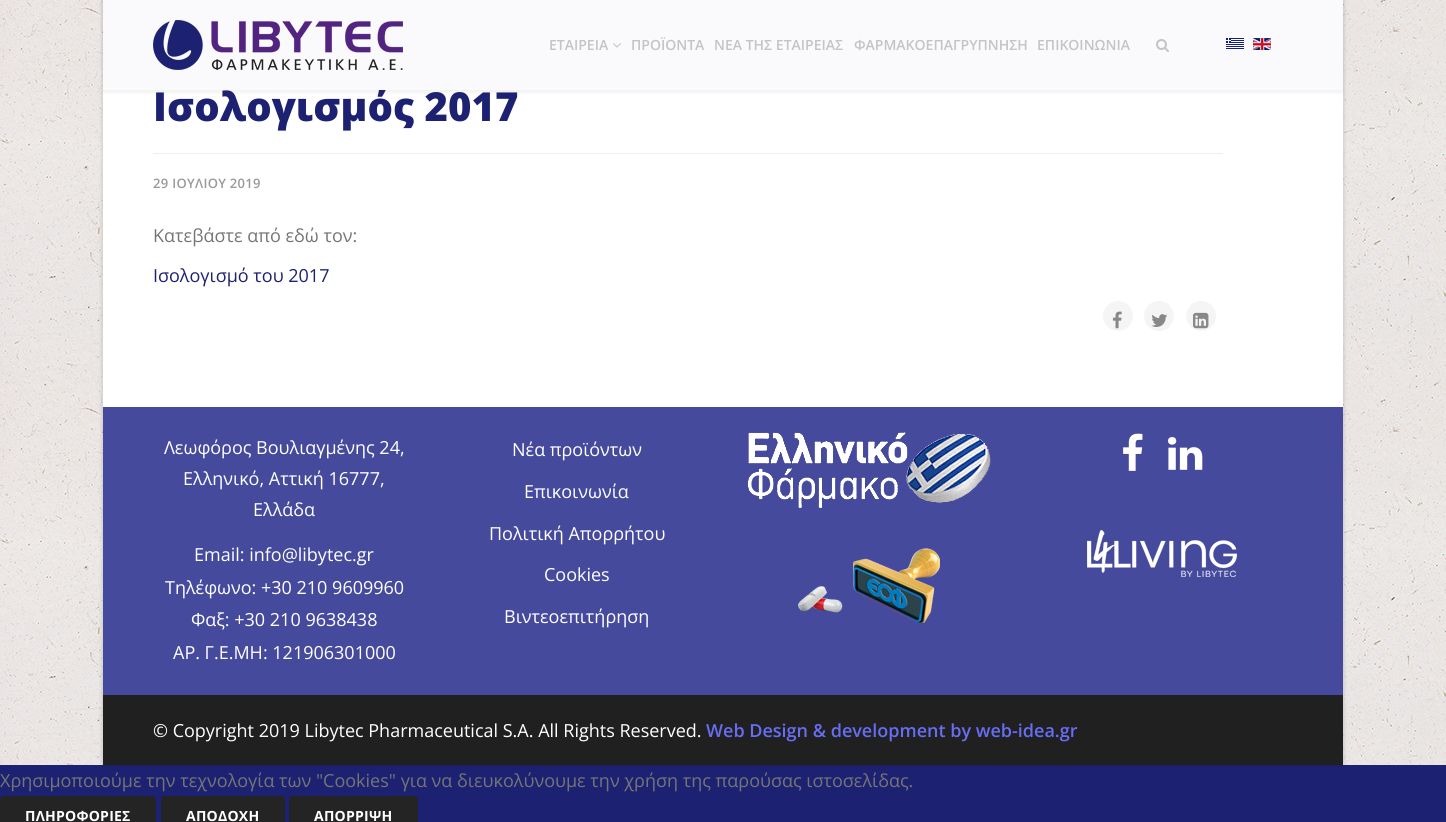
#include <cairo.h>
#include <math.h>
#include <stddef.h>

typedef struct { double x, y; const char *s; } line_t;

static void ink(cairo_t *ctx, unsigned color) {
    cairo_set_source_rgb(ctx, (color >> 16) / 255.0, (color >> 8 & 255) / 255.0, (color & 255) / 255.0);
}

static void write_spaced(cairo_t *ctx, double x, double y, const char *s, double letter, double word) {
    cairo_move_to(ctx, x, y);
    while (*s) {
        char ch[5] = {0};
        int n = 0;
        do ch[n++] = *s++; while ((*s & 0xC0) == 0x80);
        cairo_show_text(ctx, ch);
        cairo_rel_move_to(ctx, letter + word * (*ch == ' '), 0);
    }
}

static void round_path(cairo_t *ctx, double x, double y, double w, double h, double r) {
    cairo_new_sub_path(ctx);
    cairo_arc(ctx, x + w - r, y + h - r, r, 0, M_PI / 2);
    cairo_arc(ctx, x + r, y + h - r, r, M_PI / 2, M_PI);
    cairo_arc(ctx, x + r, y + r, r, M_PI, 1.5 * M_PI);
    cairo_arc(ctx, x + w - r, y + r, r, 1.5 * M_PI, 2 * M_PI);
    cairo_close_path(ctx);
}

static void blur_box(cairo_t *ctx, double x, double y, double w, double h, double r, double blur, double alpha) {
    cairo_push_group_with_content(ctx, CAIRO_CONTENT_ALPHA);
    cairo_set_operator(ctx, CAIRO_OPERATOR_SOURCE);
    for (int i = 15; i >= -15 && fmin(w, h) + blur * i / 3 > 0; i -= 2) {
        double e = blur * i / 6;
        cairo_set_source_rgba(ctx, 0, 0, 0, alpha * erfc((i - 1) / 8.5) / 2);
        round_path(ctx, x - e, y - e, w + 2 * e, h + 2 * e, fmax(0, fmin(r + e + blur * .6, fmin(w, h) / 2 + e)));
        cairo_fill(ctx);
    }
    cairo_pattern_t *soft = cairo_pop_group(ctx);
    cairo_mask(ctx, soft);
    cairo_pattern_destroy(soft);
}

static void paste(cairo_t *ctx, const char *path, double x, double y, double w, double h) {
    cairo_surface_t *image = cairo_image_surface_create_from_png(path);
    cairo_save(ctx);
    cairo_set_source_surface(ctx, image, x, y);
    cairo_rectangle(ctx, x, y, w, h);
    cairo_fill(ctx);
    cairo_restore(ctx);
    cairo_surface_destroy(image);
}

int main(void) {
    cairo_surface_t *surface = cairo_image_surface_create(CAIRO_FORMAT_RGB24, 1446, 822);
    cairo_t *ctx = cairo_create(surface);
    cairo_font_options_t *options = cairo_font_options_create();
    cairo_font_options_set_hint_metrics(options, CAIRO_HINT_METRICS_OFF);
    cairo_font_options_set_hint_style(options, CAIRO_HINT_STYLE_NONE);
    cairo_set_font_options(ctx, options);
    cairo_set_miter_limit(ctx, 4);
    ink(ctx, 0xFFFFFF);
    cairo_paint(ctx);
    paste(ctx, "media/1.png", 0, 0, 1446, 765);
    ink(ctx, 0x1D2172);
    cairo_rectangle(ctx, 0, 765, 1446, 57);
    cairo_fill(ctx);
    ink(ctx, 0x000000);
    blur_box(ctx, 103, -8, 1240, 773, 0, 2.5, 0.2);
    ink(ctx, 0xFFFFFF);
    cairo_rectangle(ctx, 103, 90, 1240, 317);
    cairo_fill(ctx);
    ink(ctx, 0x000000);
    blur_box(ctx, 103, 3, 1240, 90, 0, 1.5, 0.05);
    cairo_select_font_face(ctx, "Open Sans ExtraBold", CAIRO_FONT_SLANT_NORMAL, CAIRO_FONT_WEIGHT_NORMAL);
    cairo_set_font_size(ctx, 40);
    ink(ctx, 0x1D2172);
    cairo_move_to(ctx, 153, 121);
    cairo_show_text(ctx, "Ισολογισμός 2017");
    ink(ctx, 0xFAFAFC);
    cairo_rectangle(ctx, 103, 0, 1240, 90);
    cairo_fill(ctx);
    paste(ctx, "media/2.png", 153, 20, 250, 50);
    cairo_select_font_face(ctx, "Open Sans SemiBold", CAIRO_FONT_SLANT_NORMAL, CAIRO_FONT_WEIGHT_NORMAL);
    cairo_set_font_size(ctx, 14);
    ink(ctx, 0xC4C4C4);
    cairo_move_to(ctx, 549, 50);
    cairo_show_text(ctx, "ΕΤΑΙΡΕΙΑ");
    paste(ctx, "media/3.png", 613, 43, 8, 5);
    {
        static const line_t items[] = {
            {631, 50, "ΠΡΟΪΟΝΤΑ"},
            {714, 50, "ΝΕΑ ΤΗΣ ΕΤΑΙΡΕΙΑΣ"},
            {854, 50, "ΦΑΡΜΑΚΟΕΠΑΓΡΥΠΝΗΣΗ"},
            {1037, 50, "ΕΠΙΚΟΙΝΩΝΙΑ"},
        };
        for (size_t i = 0; i < sizeof items / sizeof *items; i++) {
            cairo_move_to(ctx, items[i].x, items[i].y);
            cairo_show_text(ctx, items[i].s);
        }
    }
    paste(ctx, "media/4.png", 1156, 39, 13, 13);
    paste(ctx, "media/5.png", 1226, 38, 18, 12);
    paste(ctx, "media/6.png", 1253, 38, 18, 12);
    ink(ctx, 0xEEEEEE);
    cairo_rectangle(ctx, 153, 153, 1070, 1);
    cairo_fill(ctx);
    cairo_set_font_size(ctx, 13);
    ink(ctx, 0x999999);
    write_spaced(ctx, 153, 188, "29 ΙΟΥΛΙΟΥ 2019", 0.3, 0);
    cairo_select_font_face(ctx, "Open Sans", CAIRO_FONT_SLANT_NORMAL, CAIRO_FONT_WEIGHT_NORMAL);
    cairo_set_font_size(ctx, 18);
    ink(ctx, 0x757575);
    cairo_move_to(ctx, 153, 242);
    cairo_show_text(ctx, "Κατεβάστε από εδώ τον:");
    ink(ctx, 0x1D2172);
    cairo_move_to(ctx, 153, 282);
    cairo_show_text(ctx, "Ισολογισμό του 2017");
    ink(ctx, 0xF5F5F5);
    cairo_new_path(ctx);
    cairo_arc(ctx, 1118, 316, 15, 0, 2 * M_PI);
    cairo_fill(ctx);
    paste(ctx, "media/7.png", 1112, 311, 10, 18);
    cairo_arc(ctx, 1159, 316, 15, 0, 2 * M_PI);
    cairo_fill(ctx);
    paste(ctx, "media/8.png", 1151, 314, 16, 13);
    cairo_arc(ctx, 1201, 316, 15, 0, 2 * M_PI);
    cairo_fill(ctx);
    paste(ctx, "media/9.png", 1193, 312, 16, 17);
    ink(ctx, 0x464A9D);
    cairo_rectangle(ctx, 103, 407, 1240, 288);
    cairo_fill(ctx);
    ink(ctx, 0xFFFFFF);
    {
        static const line_t items[] = {
            {164, 454, "Λεωφόρος Βουλιαγμένης 24,"},
            {183, 485, "Ελληνικό, Αττική 16777,"},
            {253, 516, "Ελλάδα"},
            {194, 561, "Email: info@libytec.gr"},
            {165, 594, "Τηλέφωνο: +30 210 9609960"},
            {191, 626, "Φαξ: +30 210 9638438"},
            {173, 659, "ΑΡ. Γ.Ε.ΜΗ: 121906301000"},
            {512, 456, "Νέα προϊόντων"},
            {524, 498, "Επικοινωνία"},
            {489, 540, "Πολιτική Απορρήτου"},
            {544, 581, "Cookies"},
            {504, 623, "Βιντεοεπιτήρηση"},
        };
        for (size_t i = 0; i < sizeof items / sizeof *items; i++) {
            cairo_move_to(ctx, items[i].x, items[i].y);
            cairo_show_text(ctx, items[i].s);
        }
    }
    paste(ctx, "media/10.png", 747, 432, 244, 76);
    paste(ctx, "media/11.png", 798, 548, 142, 75);
    paste(ctx, "media/12.png", 1123, 433, 20, 38);
    paste(ctx, "media/13.png", 1168, 437, 35, 33);
    paste(ctx, "media/14.png", 1087, 530, 150, 47);
    ink(ctx, 0x202020);
    cairo_rectangle(ctx, 103, 695, 1240, 70);
    cairo_fill(ctx);
    ink(ctx, 0xFFFFFF);
    cairo_move_to(ctx, 153, 737);
    cairo_show_text(ctx, "© Copyright 2019 Libytec Pharmaceutical S.A. All Rights Reserved.");
    cairo_select_font_face(ctx, "Open Sans SemiBold", CAIRO_FONT_SLANT_NORMAL, CAIRO_FONT_WEIGHT_NORMAL);
    ink(ctx, 0x676DF4);
    cairo_move_to(ctx, 706, 737);
    cairo_show_text(ctx, "Web Design & development by web-idea.gr");
    cairo_select_font_face(ctx, "Open Sans", CAIRO_FONT_SLANT_NORMAL, CAIRO_FONT_WEIGHT_NORMAL);
    ink(ctx, 0x757575);
    cairo_move_to(ctx, 0, 787);
    cairo_show_text(ctx, "Χρησιμοποιούμε την τεχνολογία των \"Cookies\" για να διευκολύνουμε την χρήση της παρούσας ιστοσελίδας.");
    ink(ctx, 0x242424);
    round_path(ctx, 0, 796, 156, 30, 4);
    cairo_fill(ctx);
    cairo_select_font_face(ctx, "Open Sans", CAIRO_FONT_SLANT_NORMAL, CAIRO_FONT_WEIGHT_BOLD);
    cairo_set_font_size(ctx, 14);
    ink(ctx, 0xFFFFFF);
    write_spaced(ctx, 25, 821, "ΠΛΗΡΟΦΟΡΙΕΣ", 0.25, 0);
    ink(ctx, 0x242424);
    round_path(ctx, 161, 796, 124, 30, 4);
    cairo_fill(ctx);
    ink(ctx, 0xFFFFFF);
    write_spaced(ctx, 186, 821, "ΑΠΟΔΟΧΗ", 0.25, 0);
    ink(ctx, 0x242424);
    round_path(ctx, 289, 796, 129, 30, 4);
    cairo_fill(ctx);
    ink(ctx, 0xFFFFFF);
    write_spaced(ctx, 314, 821, "ΑΠΟΡΡΙΨΗ", 0.25, 0);
    cairo_surface_write_to_png(surface, "image.png");
    cairo_font_options_destroy(options);
    cairo_destroy(ctx);
    cairo_surface_destroy(surface);
    return 0;
}
